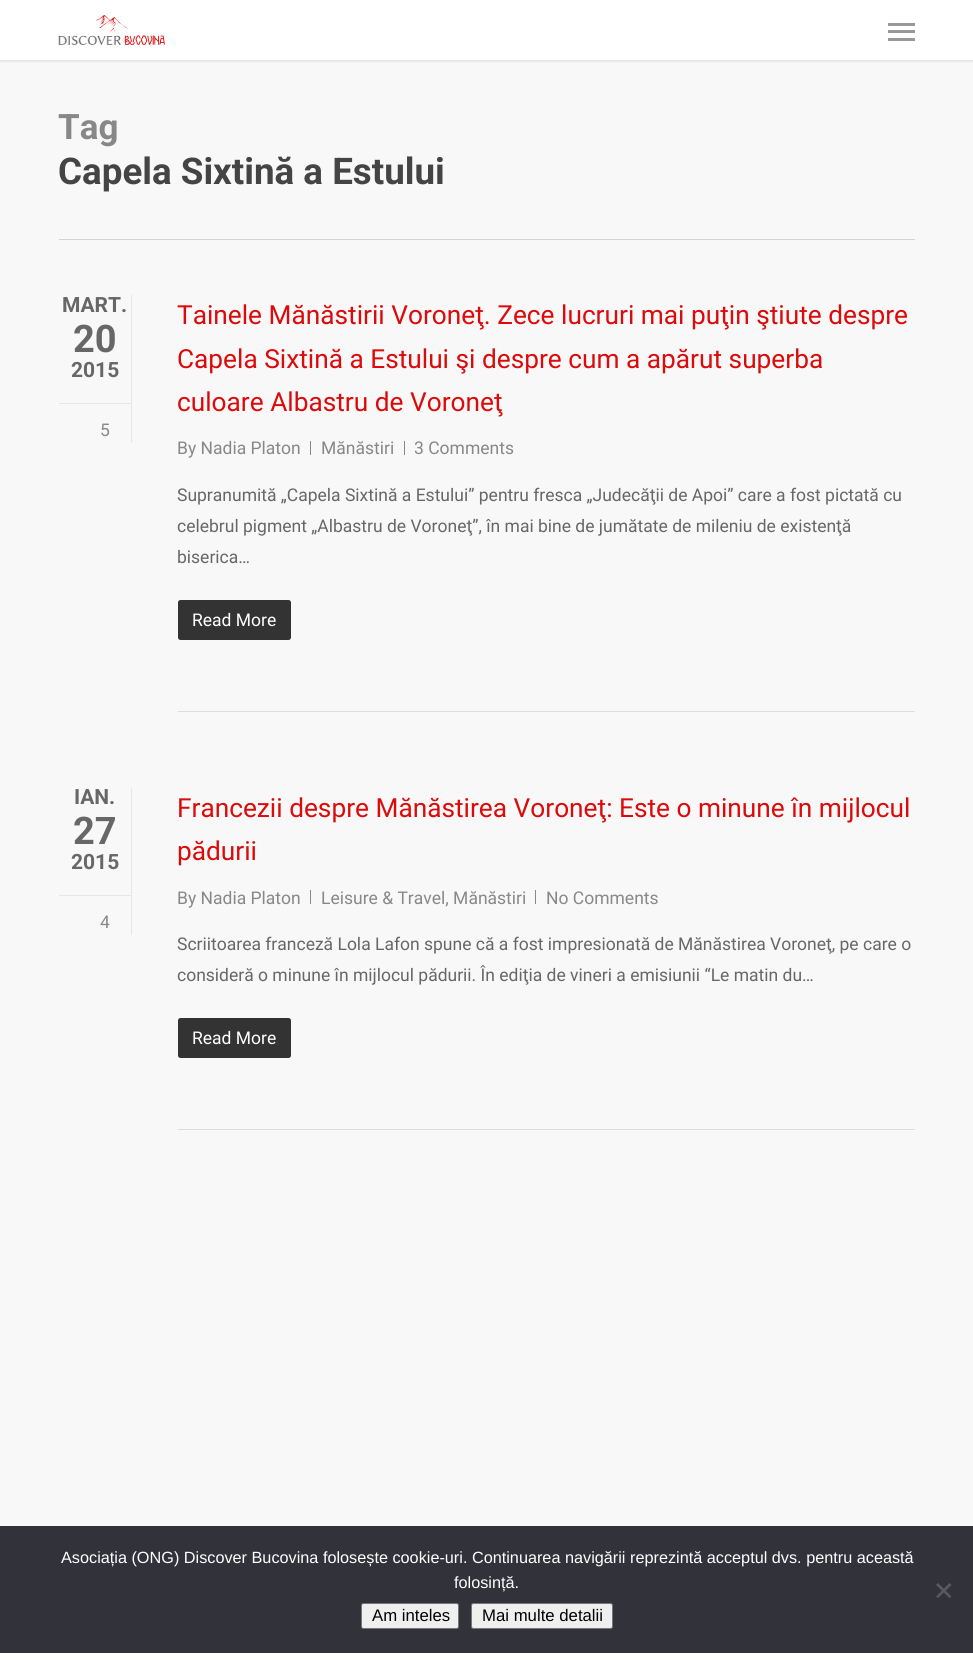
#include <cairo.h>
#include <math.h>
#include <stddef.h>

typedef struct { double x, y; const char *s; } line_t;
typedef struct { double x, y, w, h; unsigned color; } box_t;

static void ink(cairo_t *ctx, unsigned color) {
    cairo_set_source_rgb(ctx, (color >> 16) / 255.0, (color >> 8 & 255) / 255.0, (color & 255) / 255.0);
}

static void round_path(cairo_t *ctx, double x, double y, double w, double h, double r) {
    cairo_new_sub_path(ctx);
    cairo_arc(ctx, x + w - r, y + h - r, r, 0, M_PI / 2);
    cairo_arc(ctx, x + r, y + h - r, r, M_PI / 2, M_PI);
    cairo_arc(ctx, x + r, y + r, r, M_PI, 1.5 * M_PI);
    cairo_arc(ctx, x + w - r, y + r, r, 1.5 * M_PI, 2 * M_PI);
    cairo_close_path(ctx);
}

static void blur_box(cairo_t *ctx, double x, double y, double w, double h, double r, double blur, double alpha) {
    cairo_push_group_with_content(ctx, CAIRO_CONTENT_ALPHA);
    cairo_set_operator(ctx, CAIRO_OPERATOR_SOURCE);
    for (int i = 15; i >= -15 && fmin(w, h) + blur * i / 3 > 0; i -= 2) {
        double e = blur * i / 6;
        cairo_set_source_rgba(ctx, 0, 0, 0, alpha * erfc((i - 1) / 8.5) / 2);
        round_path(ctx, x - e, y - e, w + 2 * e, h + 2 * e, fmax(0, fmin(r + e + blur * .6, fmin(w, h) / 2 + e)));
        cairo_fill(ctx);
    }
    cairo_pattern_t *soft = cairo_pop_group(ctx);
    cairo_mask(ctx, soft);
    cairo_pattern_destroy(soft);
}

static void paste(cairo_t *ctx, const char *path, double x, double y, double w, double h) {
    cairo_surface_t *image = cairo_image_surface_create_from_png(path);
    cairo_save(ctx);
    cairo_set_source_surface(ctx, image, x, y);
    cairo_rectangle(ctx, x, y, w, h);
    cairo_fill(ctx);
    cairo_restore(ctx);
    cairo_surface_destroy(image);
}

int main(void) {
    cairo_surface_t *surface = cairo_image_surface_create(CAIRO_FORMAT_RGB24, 973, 1653);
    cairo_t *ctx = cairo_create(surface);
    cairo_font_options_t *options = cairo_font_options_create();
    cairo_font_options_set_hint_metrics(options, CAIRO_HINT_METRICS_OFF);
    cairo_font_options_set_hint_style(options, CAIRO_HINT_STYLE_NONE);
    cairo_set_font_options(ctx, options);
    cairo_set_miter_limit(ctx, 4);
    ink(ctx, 0xFFFFFF);
    cairo_paint(ctx);
    ink(ctx, 0xF8F8F8);
    cairo_rectangle(ctx, 0, 60, 973, 1466);
    cairo_fill(ctx);
    cairo_save(ctx);
    cairo_rectangle(ctx, 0, 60, 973, 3);
    cairo_clip(ctx);
    ink(ctx, 0x000000);
    blur_box(ctx, 0, 0, 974, 60, 0, 2, 0.22);
    cairo_restore(ctx);
    paste(ctx, "media/1.png", 58, 15, 107, 30);
    {
        static const box_t items[] = {
            {888, 23, 27, 3, 0x999999},
            {888, 38, 27, 3, 0x999999},
            {888, 30, 27, 3, 0x999999},
            {59, 239, 856, 1, 0xD3D3D3},
        };
        for (size_t i = 0; i < sizeof items / sizeof *items; i++) {
            ink(ctx, items[i].color);
            cairo_rectangle(ctx, items[i].x, items[i].y, items[i].w, items[i].h);
            cairo_fill(ctx);
        }
    }
    cairo_select_font_face(ctx, "Roboto", CAIRO_FONT_SLANT_NORMAL, CAIRO_FONT_WEIGHT_BOLD);
    cairo_set_font_size(ctx, 35);
    ink(ctx, 0x888888);
    cairo_move_to(ctx, 58, 139);
    cairo_show_text(ctx, "Tag");
    cairo_set_font_size(ctx, 36.75);
    ink(ctx, 0x444444);
    cairo_move_to(ctx, 58, 184);
    cairo_show_text(ctx, "Capela Sixtină a Estului");
    ink(ctx, 0xE6E6E6);
    cairo_rectangle(ctx, 131, 295, 1, 148);
    cairo_fill(ctx);
    cairo_rectangle(ctx, 59, 403, 72, 1);
    cairo_fill(ctx);
    cairo_set_font_size(ctx, 21);
    ink(ctx, 0x676767);
    cairo_move_to(ctx, 62, 312);
    cairo_show_text(ctx, "MART.");
    cairo_set_font_size(ctx, 38);
    cairo_move_to(ctx, 73, 352);
    cairo_show_text(ctx, "20");
    cairo_set_font_size(ctx, 21);
    cairo_move_to(ctx, 71, 377);
    cairo_show_text(ctx, "2015");
    cairo_select_font_face(ctx, "Roboto", CAIRO_FONT_SLANT_NORMAL, CAIRO_FONT_WEIGHT_NORMAL);
    cairo_set_font_size(ctx, 17.5);
    ink(ctx, 0x888888);
    cairo_move_to(ctx, 100, 436);
    cairo_show_text(ctx, "5");
    ink(ctx, 0xDDDDDD);
    cairo_rectangle(ctx, 178, 711, 737, 1);
    cairo_fill(ctx);
    cairo_set_font_size(ctx, 26.25);
    ink(ctx, 0xDC0A0A);
    {
        static const line_t items[] = {
            {177, 324, "Tainele Mănăstirii Voroneţ. Zece lucruri mai puţin ştiute despre"},
            {177, 368, "Capela Sixtină a Estului şi despre cum a apărut superba"},
            {177, 411, "culoare Albastru de Voroneţ"},
        };
        for (size_t i = 0; i < sizeof items / sizeof *items; i++) {
            cairo_move_to(ctx, items[i].x, items[i].y);
            cairo_show_text(ctx, items[i].s);
        }
    }
    cairo_set_font_size(ctx, 17.5);
    ink(ctx, 0x888888);
    cairo_move_to(ctx, 177, 454);
    cairo_show_text(ctx, "By Nadia Platon");
    cairo_rectangle(ctx, 310, 441, 1, 14);
    cairo_fill(ctx);
    cairo_move_to(ctx, 321, 454);
    cairo_show_text(ctx, "Mănăstiri");
    cairo_rectangle(ctx, 404, 441, 1, 14);
    cairo_fill(ctx);
    cairo_move_to(ctx, 414, 454);
    cairo_show_text(ctx, "3 Comments");
    ink(ctx, 0x676767);
    {
        static const line_t items[] = {
            {177, 501, "Supranumită „Capela Sixtină a Estului” pentru fresca „Judecăţii de Apoi” care a fost pictată cu"},
            {177, 532, "celebrul pigment „Albastru de Voroneţ”, în mai bine de jumătate de mileniu de existenţă"},
            {177, 563, "biserica…"},
        };
        for (size_t i = 0; i < sizeof items / sizeof *items; i++) {
            cairo_move_to(ctx, items[i].x, items[i].y);
            cairo_show_text(ctx, items[i].s);
        }
    }
    ink(ctx, 0x333333);
    round_path(ctx, 178, 600, 113, 40, 2.5);
    cairo_fill(ctx);
    ink(ctx, 0xFFFFFF);
    cairo_move_to(ctx, 192, 626);
    cairo_show_text(ctx, "Read More");
    ink(ctx, 0xE6E6E6);
    cairo_rectangle(ctx, 131, 788, 1, 147);
    cairo_fill(ctx);
    cairo_rectangle(ctx, 59, 895, 72, 1);
    cairo_fill(ctx);
    cairo_select_font_face(ctx, "Roboto", CAIRO_FONT_SLANT_NORMAL, CAIRO_FONT_WEIGHT_BOLD);
    cairo_set_font_size(ctx, 21);
    ink(ctx, 0x676767);
    cairo_move_to(ctx, 74, 804);
    cairo_show_text(ctx, "IAN.");
    cairo_set_font_size(ctx, 38);
    cairo_move_to(ctx, 73, 844);
    cairo_show_text(ctx, "27");
    cairo_set_font_size(ctx, 21);
    cairo_move_to(ctx, 71, 869);
    cairo_show_text(ctx, "2015");
    cairo_select_font_face(ctx, "Roboto", CAIRO_FONT_SLANT_NORMAL, CAIRO_FONT_WEIGHT_NORMAL);
    cairo_set_font_size(ctx, 17.5);
    ink(ctx, 0x888888);
    cairo_move_to(ctx, 100, 928);
    cairo_show_text(ctx, "4");
    ink(ctx, 0xDDDDDD);
    cairo_rectangle(ctx, 178, 1129, 737, 1);
    cairo_fill(ctx);
    cairo_set_font_size(ctx, 26.25);
    ink(ctx, 0xDC0A0A);
    cairo_move_to(ctx, 177, 817);
    cairo_show_text(ctx, "Francezii despre Mănăstirea Voroneţ: Este o minune în mijlocul");
    cairo_move_to(ctx, 177, 860);
    cairo_show_text(ctx, "pădurii");
    cairo_set_font_size(ctx, 17.5);
    ink(ctx, 0x888888);
    cairo_move_to(ctx, 177, 904);
    cairo_show_text(ctx, "By Nadia Platon");
    cairo_rectangle(ctx, 310, 890, 1, 14);
    cairo_fill(ctx);
    cairo_move_to(ctx, 321, 904);
    cairo_show_text(ctx, "Leisure & Travel, Mănăstiri");
    cairo_rectangle(ctx, 535, 890, 1, 14);
    cairo_fill(ctx);
    cairo_move_to(ctx, 546, 904);
    cairo_show_text(ctx, "No Comments");
    ink(ctx, 0x676767);
    cairo_move_to(ctx, 177, 950);
    cairo_show_text(ctx, "Scriitoarea franceză Lola Lafon spune că a fost impresionată de Mănăstirea Voroneţ, pe care o");
    cairo_move_to(ctx, 177, 981);
    cairo_show_text(ctx, "consideră o minune în mijlocul pădurii. În ediţia de vineri a emisiunii “Le matin du…");
    ink(ctx, 0x333333);
    round_path(ctx, 178, 1018, 113, 40, 2.5);
    cairo_fill(ctx);
    ink(ctx, 0xFFFFFF);
    cairo_move_to(ctx, 192, 1044);
    cairo_show_text(ctx, "Read More");
    ink(ctx, 0x32323A);
    cairo_rectangle(ctx, 0, 1526, 973, 127);
    cairo_fill(ctx);
    cairo_select_font_face(ctx, "Liberation Sans", CAIRO_FONT_SLANT_NORMAL, CAIRO_FONT_WEIGHT_NORMAL);
    cairo_set_font_size(ctx, 16.25);
    ink(ctx, 0xFFFFFF);
    cairo_move_to(ctx, 61, 1563);
    cairo_show_text(ctx, "Asociația (ONG) Discover Bucovina folosește cookie-uri. Continuarea navigării reprezintă acceptul dvs. pentru această");
    cairo_move_to(ctx, 454, 1588);
    cairo_show_text(ctx, "folosință.");
    ink(ctx, 0x59595D);
    cairo_new_path(ctx);
    cairo_move_to(ctx, 949.5, 1583);
    cairo_line_to(ctx, 951.5, 1585);
    cairo_line_to(ctx, 938, 1598);
    cairo_line_to(ctx, 936, 1596.5);
    cairo_close_path(ctx);
    cairo_fill(ctx);
    cairo_new_path(ctx);
    cairo_move_to(ctx, 936, 1585);
    cairo_line_to(ctx, 938, 1583);
    cairo_line_to(ctx, 951.5, 1596.5);
    cairo_line_to(ctx, 949.5, 1598);
    cairo_close_path(ctx);
    cairo_fill(ctx);
    ink(ctx, 0xEFEFEF);
    round_path(ctx, 361.5, 1603.5, 97, 25, 2);
    cairo_fill_preserve(ctx);
    ink(ctx, 0x767676);
    cairo_set_line_width(ctx, 1);
    cairo_stroke(ctx);
    cairo_set_font_size(ctx, 16.75);
    ink(ctx, 0x000000);
    cairo_move_to(ctx, 372, 1621);
    cairo_show_text(ctx, "Am inteles");
    ink(ctx, 0xEFEFEF);
    round_path(ctx, 471.5, 1603.5, 141, 25, 2);
    cairo_fill_preserve(ctx);
    ink(ctx, 0x767676);
    cairo_stroke(ctx);
    ink(ctx, 0x000000);
    cairo_move_to(ctx, 482, 1621);
    cairo_show_text(ctx, "Mai multe detalii");
    cairo_surface_write_to_png(surface, "image.png");
    cairo_font_options_destroy(options);
    cairo_destroy(ctx);
    cairo_surface_destroy(surface);
    return 0;
}
